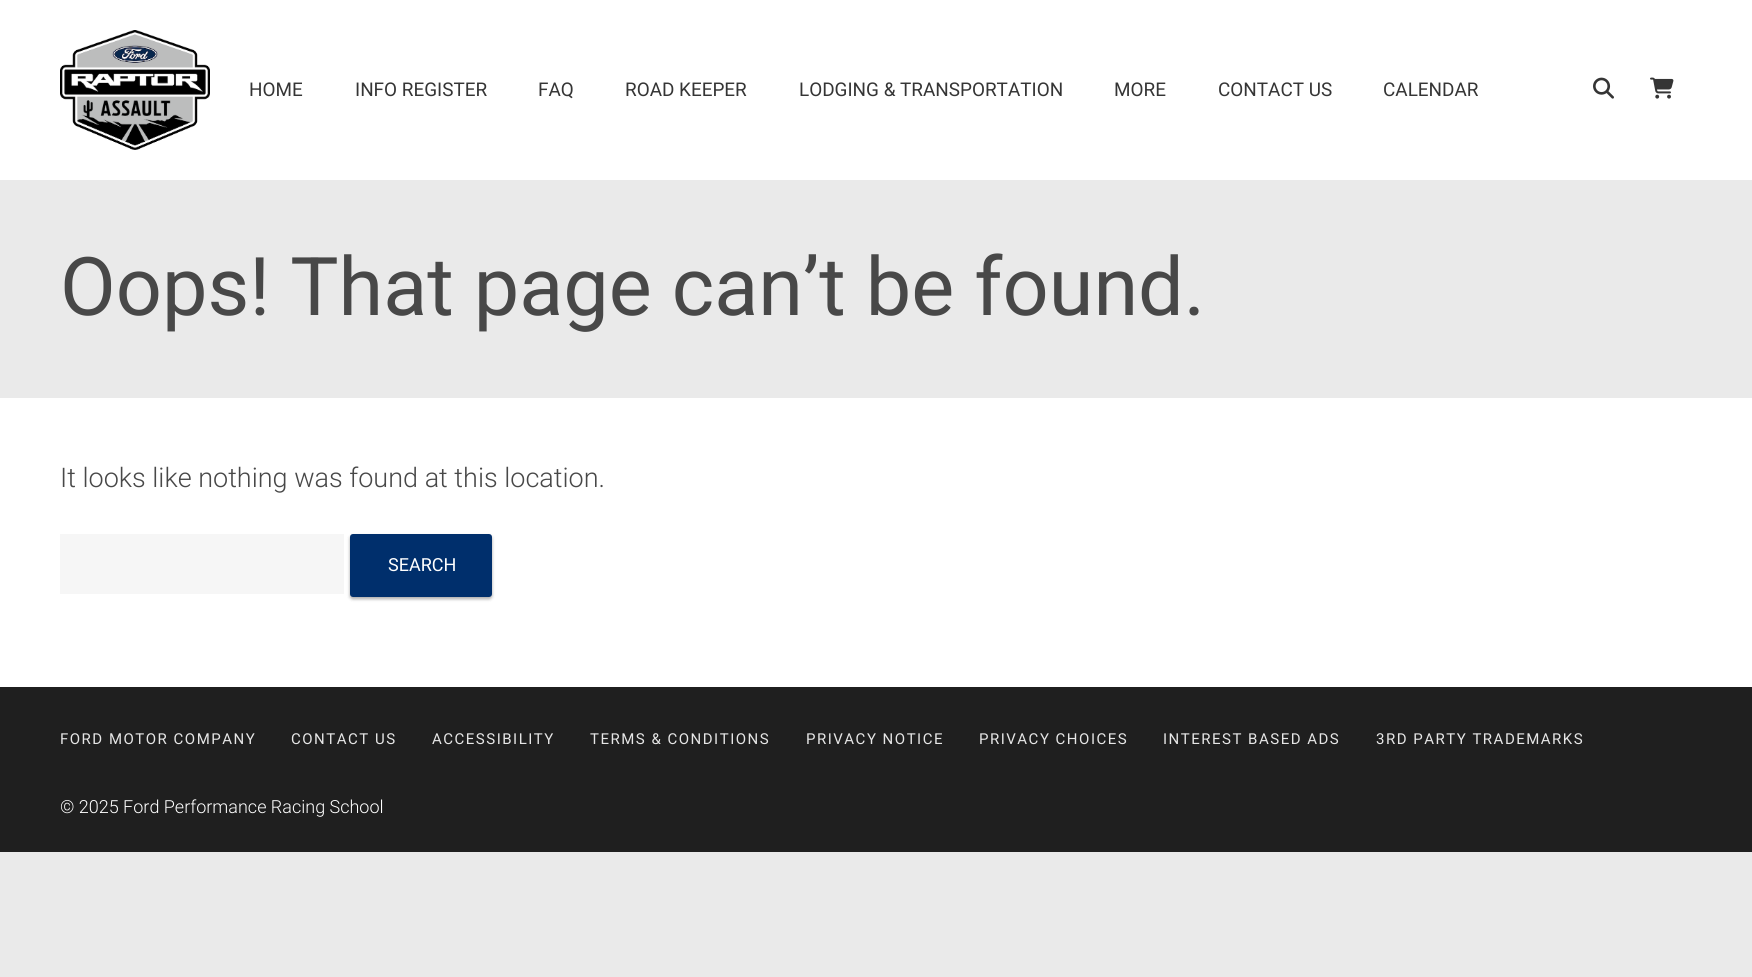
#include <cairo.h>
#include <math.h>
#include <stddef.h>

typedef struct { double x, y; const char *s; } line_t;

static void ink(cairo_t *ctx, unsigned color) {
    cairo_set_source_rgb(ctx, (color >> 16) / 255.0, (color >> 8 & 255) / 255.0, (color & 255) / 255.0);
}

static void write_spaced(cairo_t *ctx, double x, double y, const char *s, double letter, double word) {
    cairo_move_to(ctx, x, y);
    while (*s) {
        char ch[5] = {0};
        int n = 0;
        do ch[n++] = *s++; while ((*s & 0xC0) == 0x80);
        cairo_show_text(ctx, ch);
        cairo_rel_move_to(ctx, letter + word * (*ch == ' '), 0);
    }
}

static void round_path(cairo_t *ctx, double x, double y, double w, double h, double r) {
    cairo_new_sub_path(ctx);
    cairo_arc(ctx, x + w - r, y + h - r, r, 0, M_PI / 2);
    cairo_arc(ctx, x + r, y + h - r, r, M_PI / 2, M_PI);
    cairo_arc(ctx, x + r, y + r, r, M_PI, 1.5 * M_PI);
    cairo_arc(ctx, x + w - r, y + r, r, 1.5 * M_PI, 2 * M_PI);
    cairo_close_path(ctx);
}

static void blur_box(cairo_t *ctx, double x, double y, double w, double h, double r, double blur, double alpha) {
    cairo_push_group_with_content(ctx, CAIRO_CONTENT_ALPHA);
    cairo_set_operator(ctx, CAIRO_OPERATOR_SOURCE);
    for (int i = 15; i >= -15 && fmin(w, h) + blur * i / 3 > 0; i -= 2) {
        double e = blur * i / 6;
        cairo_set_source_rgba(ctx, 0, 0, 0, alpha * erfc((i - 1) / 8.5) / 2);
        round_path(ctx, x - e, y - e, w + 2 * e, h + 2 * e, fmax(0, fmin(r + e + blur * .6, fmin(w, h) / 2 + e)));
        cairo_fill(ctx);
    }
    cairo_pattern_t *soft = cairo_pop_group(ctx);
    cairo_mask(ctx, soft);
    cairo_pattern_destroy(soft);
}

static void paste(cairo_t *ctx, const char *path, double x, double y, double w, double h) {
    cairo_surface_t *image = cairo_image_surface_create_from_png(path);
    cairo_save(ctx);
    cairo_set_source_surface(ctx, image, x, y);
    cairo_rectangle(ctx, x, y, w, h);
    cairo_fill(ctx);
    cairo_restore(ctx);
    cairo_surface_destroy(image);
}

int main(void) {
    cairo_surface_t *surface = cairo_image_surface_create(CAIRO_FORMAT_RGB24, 1752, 977);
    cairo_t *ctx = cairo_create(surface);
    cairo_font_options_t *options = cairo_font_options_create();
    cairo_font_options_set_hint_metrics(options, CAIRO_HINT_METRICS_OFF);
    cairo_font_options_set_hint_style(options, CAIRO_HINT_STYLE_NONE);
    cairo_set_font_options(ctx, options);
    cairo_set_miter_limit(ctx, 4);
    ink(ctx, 0xEAEAEA);
    cairo_paint(ctx);
    ink(ctx, 0xFFFFFF);
    cairo_rectangle(ctx, 0, 0, 1752, 180);
    cairo_fill(ctx);
    paste(ctx, "media/1.png", 60, 30, 150, 120);
    cairo_select_font_face(ctx, "Roboto", CAIRO_FONT_SLANT_NORMAL, CAIRO_FONT_WEIGHT_NORMAL);
    cairo_set_font_size(ctx, 18.9);
    ink(ctx, 0x353535);
    {
        static const line_t items[] = {
            {249, 96, "HOME"},
            {355, 96, "INFO REGISTER"},
            {538, 96, "FAQ"},
            {625, 96, "ROAD KEEPER"},
            {799, 96, "LODGING & TRANSPORTATION"},
            {1114, 96, "MORE"},
            {1218, 96, "CONTACT US"},
            {1383, 96, "CALENDAR"},
        };
        for (size_t i = 0; i < sizeof items / sizeof *items; i++) {
            cairo_move_to(ctx, items[i].x, items[i].y);
            cairo_show_text(ctx, items[i].s);
        }
    }
    paste(ctx, "media/2.png", 1593, 77, 21, 22);
    paste(ctx, "media/3.png", 1650, 77, 24, 22);
    ink(ctx, 0xFFFFFF);
    cairo_rectangle(ctx, 0, 398, 1752, 289);
    cairo_fill(ctx);
    cairo_set_font_size(ctx, 81);
    ink(ctx, 0x484848);
    cairo_move_to(ctx, 60, 315);
    cairo_show_text(ctx, "Oops! That page can’t be found.");
    cairo_select_font_face(ctx, "Roboto Light", CAIRO_FONT_SLANT_NORMAL, CAIRO_FONT_WEIGHT_NORMAL);
    cairo_set_font_size(ctx, 27);
    cairo_move_to(ctx, 60, 487);
    cairo_show_text(ctx, "It looks like nothing was found at this location.");
    ink(ctx, 0xF6F6F6);
    cairo_rectangle(ctx, 60, 534, 284, 60);
    cairo_fill(ctx);
    ink(ctx, 0x000000);
    blur_box(ctx, 350, 536, 142, 63, 3, 1.5, 0.24);
    blur_box(ctx, 350, 536, 142, 63, 3, 2, 0.12);
    ink(ctx, 0x002F6C);
    round_path(ctx, 350, 534, 142, 63, 3);
    cairo_fill(ctx);
    cairo_select_font_face(ctx, "Roboto", CAIRO_FONT_SLANT_NORMAL, CAIRO_FONT_WEIGHT_NORMAL);
    cairo_set_font_size(ctx, 18);
    ink(ctx, 0xFFFFFF);
    cairo_move_to(ctx, 388, 571);
    cairo_show_text(ctx, "SEARCH");
    ink(ctx, 0x1F1F1F);
    cairo_rectangle(ctx, 0, 687, 1752, 165);
    cairo_fill(ctx);
    cairo_set_font_size(ctx, 15);
    ink(ctx, 0xE6E6E6);
    {
        static const line_t items[] = {
            {60, 744, "FORD MOTOR COMPANY"},
            {291, 744, "CONTACT US"},
            {432, 744, "ACCESSIBILITY"},
            {590, 744, "TERMS & CONDITIONS"},
            {806, 744, "PRIVACY NOTICE"},
            {979, 744, "PRIVACY CHOICES"},
            {1163, 744, "INTEREST BASED ADS"},
            {1376, 744, "3RD PARTY TRADEMARKS"},
        };
        for (size_t i = 0; i < sizeof items / sizeof *items; i++) {
            write_spaced(ctx, items[i].x, items[i].y, items[i].s, 1.5, 0);
        }
    }
    cairo_select_font_face(ctx, "Roboto Light", CAIRO_FONT_SLANT_NORMAL, CAIRO_FONT_WEIGHT_NORMAL);
    cairo_set_font_size(ctx, 18);
    ink(ctx, 0xFFFFFF);
    cairo_move_to(ctx, 60, 813);
    cairo_show_text(ctx, "© 2025 Ford Performance Racing School");
    cairo_surface_write_to_png(surface, "image.png");
    cairo_font_options_destroy(options);
    cairo_destroy(ctx);
    cairo_surface_destroy(surface);
    return 0;
}
